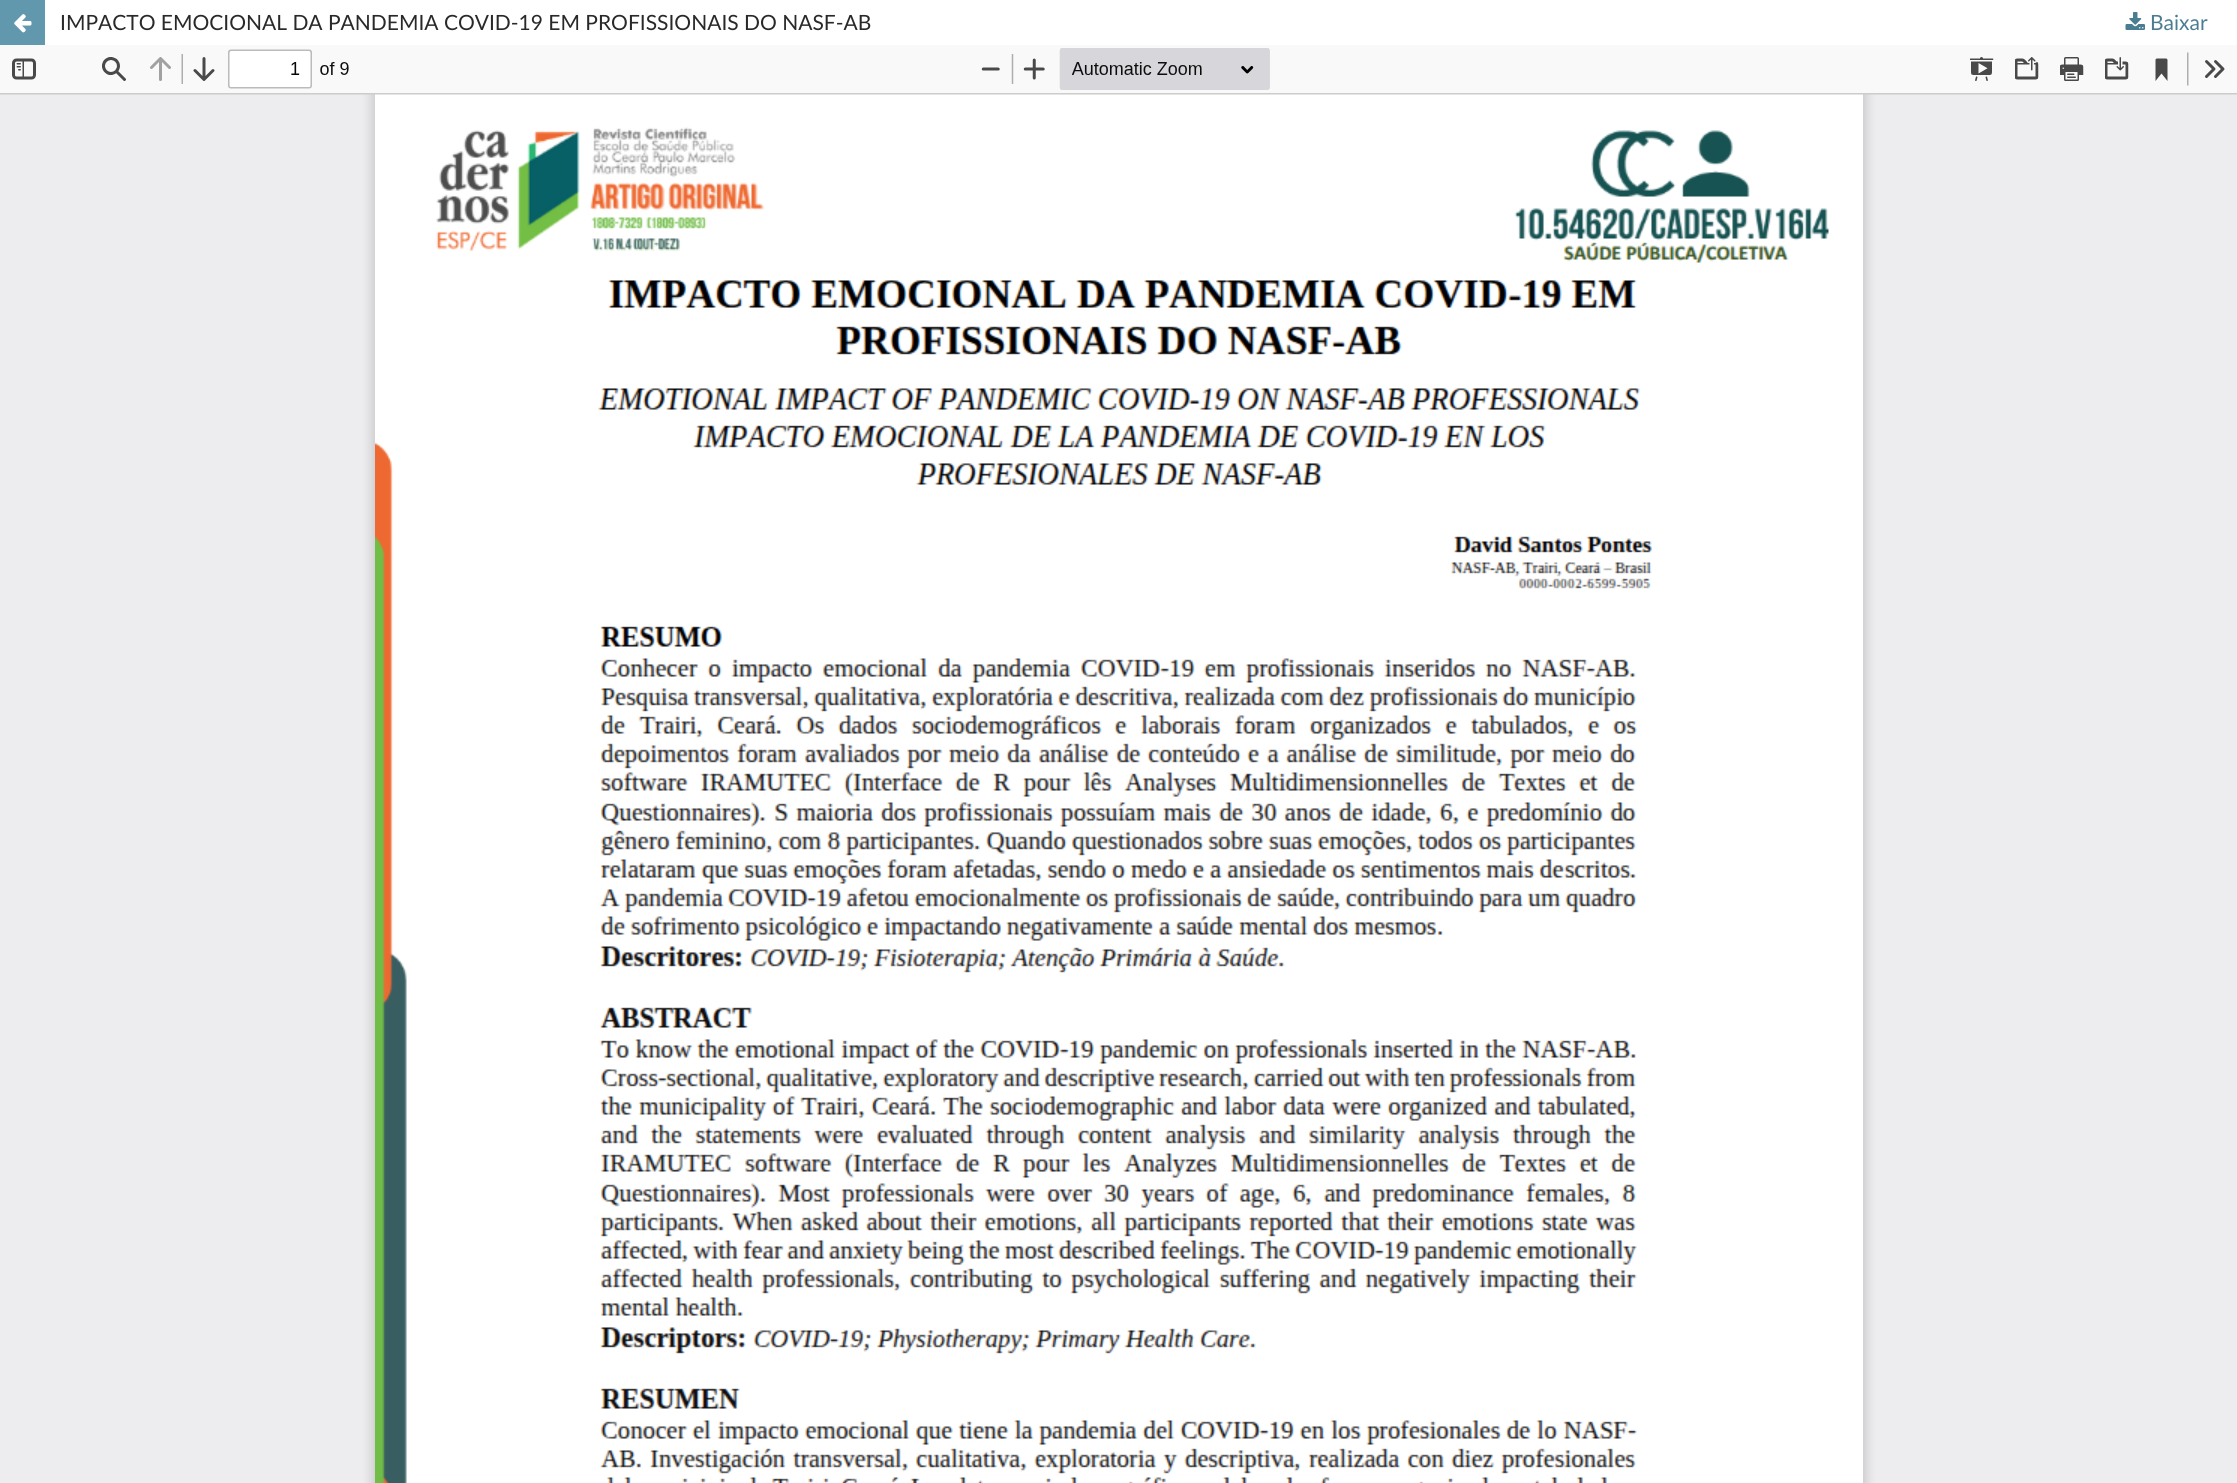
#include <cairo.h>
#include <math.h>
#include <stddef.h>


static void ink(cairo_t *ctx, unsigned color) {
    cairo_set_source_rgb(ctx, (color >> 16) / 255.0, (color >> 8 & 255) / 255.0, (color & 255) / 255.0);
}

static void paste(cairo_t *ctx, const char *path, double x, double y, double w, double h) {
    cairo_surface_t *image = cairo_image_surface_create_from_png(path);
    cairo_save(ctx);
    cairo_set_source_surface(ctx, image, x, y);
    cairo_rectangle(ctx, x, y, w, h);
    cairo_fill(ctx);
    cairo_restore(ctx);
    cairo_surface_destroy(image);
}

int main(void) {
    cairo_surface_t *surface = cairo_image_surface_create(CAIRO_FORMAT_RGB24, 2237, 1483);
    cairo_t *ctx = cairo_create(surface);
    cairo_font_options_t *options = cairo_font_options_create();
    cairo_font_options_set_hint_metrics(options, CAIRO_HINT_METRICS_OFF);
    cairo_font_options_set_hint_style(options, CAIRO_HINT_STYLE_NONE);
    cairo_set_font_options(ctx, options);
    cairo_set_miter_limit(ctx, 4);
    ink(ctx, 0xFFFFFF);
    cairo_paint(ctx);
    ink(ctx, 0x6298AE);
    cairo_rectangle(ctx, 0, 0, 45, 45);
    cairo_fill(ctx);
    paste(ctx, "media/1.png", 14, 14, 18, 19);
    cairo_select_font_face(ctx, "Lato", CAIRO_FONT_SLANT_NORMAL, CAIRO_FONT_WEIGHT_NORMAL);
    cairo_set_font_size(ctx, 21);
    ink(ctx, 0x292929);
    cairo_move_to(ctx, 60, 30);
    cairo_show_text(ctx, "IMPACTO EMOCIONAL DA PANDEMIA COVID-19 EM PROFISSIONAIS DO NASF-AB");
    paste(ctx, "media/2.png", 2125, 12, 20, 18);
    ink(ctx, 0x4B7D92);
    cairo_move_to(ctx, 2150, 30);
    cairo_show_text(ctx, "Baixar");
    paste(ctx, "media/3.png", 0, 45, 2237, 1438);
    cairo_surface_write_to_png(surface, "image.png");
    cairo_font_options_destroy(options);
    cairo_destroy(ctx);
    cairo_surface_destroy(surface);
    return 0;
}
